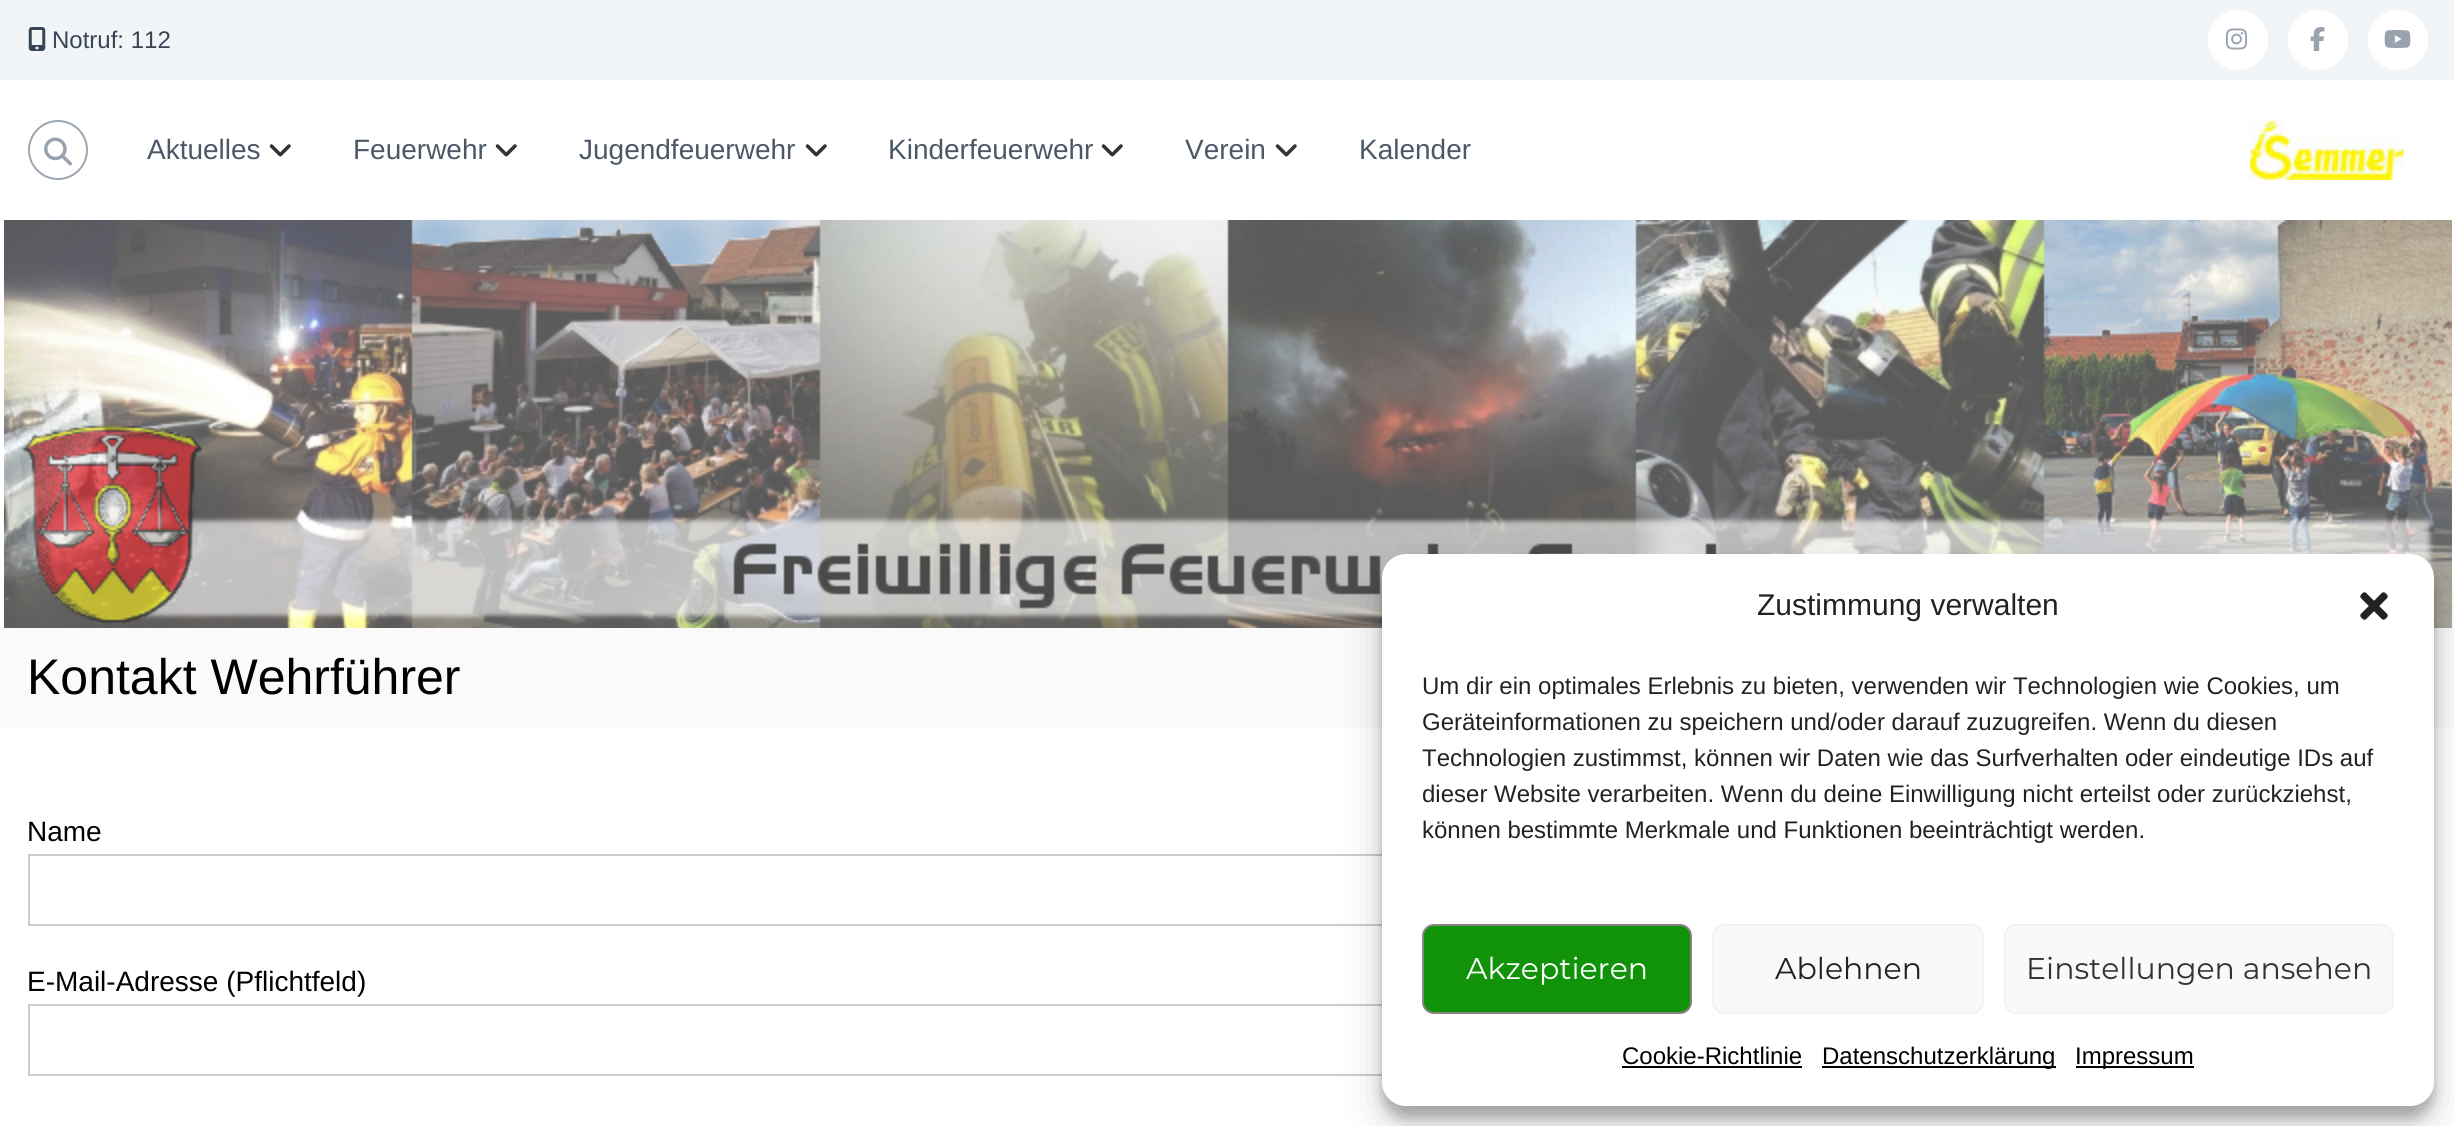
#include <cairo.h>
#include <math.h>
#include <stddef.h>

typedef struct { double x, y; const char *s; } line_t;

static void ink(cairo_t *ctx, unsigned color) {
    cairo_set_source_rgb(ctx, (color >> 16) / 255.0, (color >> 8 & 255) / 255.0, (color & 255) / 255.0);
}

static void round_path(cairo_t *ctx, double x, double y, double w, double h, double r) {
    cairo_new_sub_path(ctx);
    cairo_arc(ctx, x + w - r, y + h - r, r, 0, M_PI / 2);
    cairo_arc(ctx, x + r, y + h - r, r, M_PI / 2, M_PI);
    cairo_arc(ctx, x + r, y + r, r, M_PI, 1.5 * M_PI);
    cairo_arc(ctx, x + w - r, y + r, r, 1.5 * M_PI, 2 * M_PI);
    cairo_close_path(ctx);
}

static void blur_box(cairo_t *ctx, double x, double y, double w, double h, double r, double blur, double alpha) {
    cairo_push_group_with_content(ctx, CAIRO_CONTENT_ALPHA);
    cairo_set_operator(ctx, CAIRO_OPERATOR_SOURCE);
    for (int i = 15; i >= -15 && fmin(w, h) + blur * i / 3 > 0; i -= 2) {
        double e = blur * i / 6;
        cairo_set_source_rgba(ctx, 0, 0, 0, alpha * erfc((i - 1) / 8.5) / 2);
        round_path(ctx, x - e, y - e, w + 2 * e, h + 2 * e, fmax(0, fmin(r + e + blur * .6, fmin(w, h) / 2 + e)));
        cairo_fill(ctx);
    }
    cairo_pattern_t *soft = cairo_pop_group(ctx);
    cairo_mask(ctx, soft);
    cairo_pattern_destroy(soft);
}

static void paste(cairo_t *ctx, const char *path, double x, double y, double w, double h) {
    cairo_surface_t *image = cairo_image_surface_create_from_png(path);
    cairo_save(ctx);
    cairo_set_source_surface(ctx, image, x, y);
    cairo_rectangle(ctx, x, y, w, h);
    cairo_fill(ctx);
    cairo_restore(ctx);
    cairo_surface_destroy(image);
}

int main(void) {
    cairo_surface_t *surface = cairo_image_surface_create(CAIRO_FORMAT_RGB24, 2454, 1126);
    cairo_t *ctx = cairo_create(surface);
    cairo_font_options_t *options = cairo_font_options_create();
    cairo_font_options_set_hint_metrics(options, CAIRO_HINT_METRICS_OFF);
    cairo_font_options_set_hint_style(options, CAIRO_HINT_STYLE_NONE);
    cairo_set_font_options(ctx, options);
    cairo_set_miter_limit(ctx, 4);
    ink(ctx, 0xFFFFFF);
    cairo_paint(ctx);
    ink(ctx, 0xF1F5F8);
    cairo_rectangle(ctx, 0, 0, 2454, 80);
    cairo_fill(ctx);
    paste(ctx, "media/1.png", 28, 27, 18, 24);
    cairo_select_font_face(ctx, "Liberation Sans", CAIRO_FONT_SLANT_NORMAL, CAIRO_FONT_WEIGHT_NORMAL);
    cairo_set_font_size(ctx, 24);
    ink(ctx, 0x384554);
    cairo_move_to(ctx, 52, 48);
    cairo_show_text(ctx, "Notruf: 112");
    ink(ctx, 0xFFFFFF);
    cairo_new_path(ctx);
    cairo_arc(ctx, 2238, 40, 30, 0, 2 * M_PI);
    cairo_fill(ctx);
    paste(ctx, "media/2.png", 2226, 28, 21, 22);
    cairo_arc(ctx, 2318, 40, 30, 0, 2 * M_PI);
    cairo_fill(ctx);
    paste(ctx, "media/3.png", 2310, 27, 15, 24);
    cairo_arc(ctx, 2398, 40, 30, 0, 2 * M_PI);
    cairo_fill(ctx);
    paste(ctx, "media/4.png", 2384, 30, 27, 18);
    cairo_arc(ctx, 58, 150, 29, 0, 2 * M_PI);
    ink(ctx, 0x9CA6B2);
    cairo_stroke(ctx);
    paste(ctx, "media/5.png", 44, 137, 28, 29);
    cairo_set_font_size(ctx, 28);
    ink(ctx, 0x4C5867);
    cairo_move_to(ctx, 147, 159);
    cairo_show_text(ctx, "Aktuelles");
    paste(ctx, "media/6.png", 269, 144, 22, 13);
    cairo_move_to(ctx, 353, 159);
    cairo_show_text(ctx, "Feuerwehr");
    paste(ctx, "media/6.png", 495, 144, 22, 13);
    cairo_move_to(ctx, 579, 159);
    cairo_show_text(ctx, "Jugendfeuerwehr");
    paste(ctx, "media/6.png", 805, 144, 22, 13);
    cairo_move_to(ctx, 888, 159);
    cairo_show_text(ctx, "Kinderfeuerwehr");
    paste(ctx, "media/6.png", 1101, 144, 22, 13);
    cairo_move_to(ctx, 1185, 159);
    cairo_show_text(ctx, "Verein");
    paste(ctx, "media/6.png", 1275, 144, 22, 13);
    cairo_move_to(ctx, 1359, 159);
    cairo_show_text(ctx, "Kalender");
    paste(ctx, "media/7.png", 2250, 120, 154, 60);
    paste(ctx, "media/8.png", 4, 220, 2448, 408);
    ink(ctx, 0xFAFAFA);
    cairo_rectangle(ctx, 0, 628, 2454, 100);
    cairo_fill(ctx);
    cairo_set_font_size(ctx, 50);
    ink(ctx, 0x000000);
    cairo_move_to(ctx, 27, 694);
    cairo_show_text(ctx, "Kontakt Wehrführer");
    cairo_set_font_size(ctx, 28);
    cairo_move_to(ctx, 27, 841);
    cairo_show_text(ctx, "Name");
    cairo_rectangle(ctx, 29, 855, 1570, 70);
    ink(ctx, 0xCCCCCC);
    cairo_stroke(ctx);
    ink(ctx, 0x000000);
    cairo_move_to(ctx, 27, 991);
    cairo_show_text(ctx, "E-Mail-Adresse (Pflichtfeld)");
    cairo_rectangle(ctx, 29, 1005, 1570, 70);
    ink(ctx, 0xCCCCCC);
    cairo_stroke(ctx);
    ink(ctx, 0x000000);
    blur_box(ctx, 1382, 566, 1052, 552, 24, 6, 0.23);
    blur_box(ctx, 1382, 574, 1052, 552, 24, 20, 0.19);
    ink(ctx, 0xFFFFFF);
    round_path(ctx, 1382, 554, 1052, 552, 24);
    cairo_fill(ctx);
    cairo_set_font_size(ctx, 30);
    ink(ctx, 0x222222);
    cairo_move_to(ctx, 1757, 615);
    cairo_show_text(ctx, "Zustimmung verwalten");
    paste(ctx, "media/9.png", 2360, 592, 28, 28);
    cairo_set_font_size(ctx, 24);
    {
        static const line_t items[] = {
            {1422, 694, "Um dir ein optimales Erlebnis zu bieten, verwenden wir Technologien wie Cookies, um"},
            {1422, 730, "Geräteinformationen zu speichern und/oder darauf zuzugreifen. Wenn du diesen"},
            {1422, 766, "Technologien zustimmst, können wir Daten wie das Surfverhalten oder eindeutige IDs auf"},
            {1422, 802, "dieser Website verarbeiten. Wenn du deine Einwilligung nicht erteilst oder zurückziehst,"},
            {1422, 838, "können bestimmte Merkmale und Funktionen beeinträchtigt werden."},
        };
        for (size_t i = 0; i < sizeof items / sizeof *items; i++) {
            cairo_move_to(ctx, items[i].x, items[i].y);
            cairo_show_text(ctx, items[i].s);
        }
    }
    ink(ctx, 0x109209);
    round_path(ctx, 1423, 925, 268, 88, 11);
    cairo_fill_preserve(ctx);
    ink(ctx, 0x8C8282);
    cairo_stroke(ctx);
    cairo_select_font_face(ctx, "Montserrat", CAIRO_FONT_SLANT_NORMAL, CAIRO_FONT_WEIGHT_NORMAL);
    cairo_set_font_size(ctx, 30);
    ink(ctx, 0xFFFFFF);
    cairo_move_to(ctx, 1466, 979);
    cairo_show_text(ctx, "Akzeptieren");
    ink(ctx, 0xF9F9F9);
    round_path(ctx, 1713, 925, 270, 88, 11);
    cairo_fill_preserve(ctx);
    ink(ctx, 0xF2F2F2);
    cairo_stroke(ctx);
    ink(ctx, 0x222222);
    cairo_move_to(ctx, 1775, 979);
    cairo_show_text(ctx, "Ablehnen");
    ink(ctx, 0xF9F9F9);
    round_path(ctx, 2005, 925, 388, 88, 11);
    cairo_fill_preserve(ctx);
    ink(ctx, 0xF2F2F2);
    cairo_stroke(ctx);
    ink(ctx, 0x333333);
    cairo_move_to(ctx, 2026, 979);
    cairo_show_text(ctx, "Einstellungen ansehen");
    cairo_select_font_face(ctx, "Liberation Sans", CAIRO_FONT_SLANT_NORMAL, CAIRO_FONT_WEIGHT_NORMAL);
    cairo_set_font_size(ctx, 24);
    ink(ctx, 0x000000);
    cairo_move_to(ctx, 1622, 1064);
    cairo_show_text(ctx, "Cookie-Richtlinie");
    cairo_rectangle(ctx, 1622, 1066, 180, 2);
    cairo_fill(ctx);
    cairo_rectangle(ctx, 1822, 1066, 234, 2);
    cairo_fill(ctx);
    cairo_move_to(ctx, 1822, 1064);
    cairo_show_text(ctx, "Datenschutzerklärung");
    cairo_rectangle(ctx, 2076, 1066, 118, 2);
    cairo_fill(ctx);
    cairo_move_to(ctx, 2075, 1064);
    cairo_show_text(ctx, "Impressum");
    cairo_surface_write_to_png(surface, "image.png");
    cairo_font_options_destroy(options);
    cairo_destroy(ctx);
    cairo_surface_destroy(surface);
    return 0;
}
